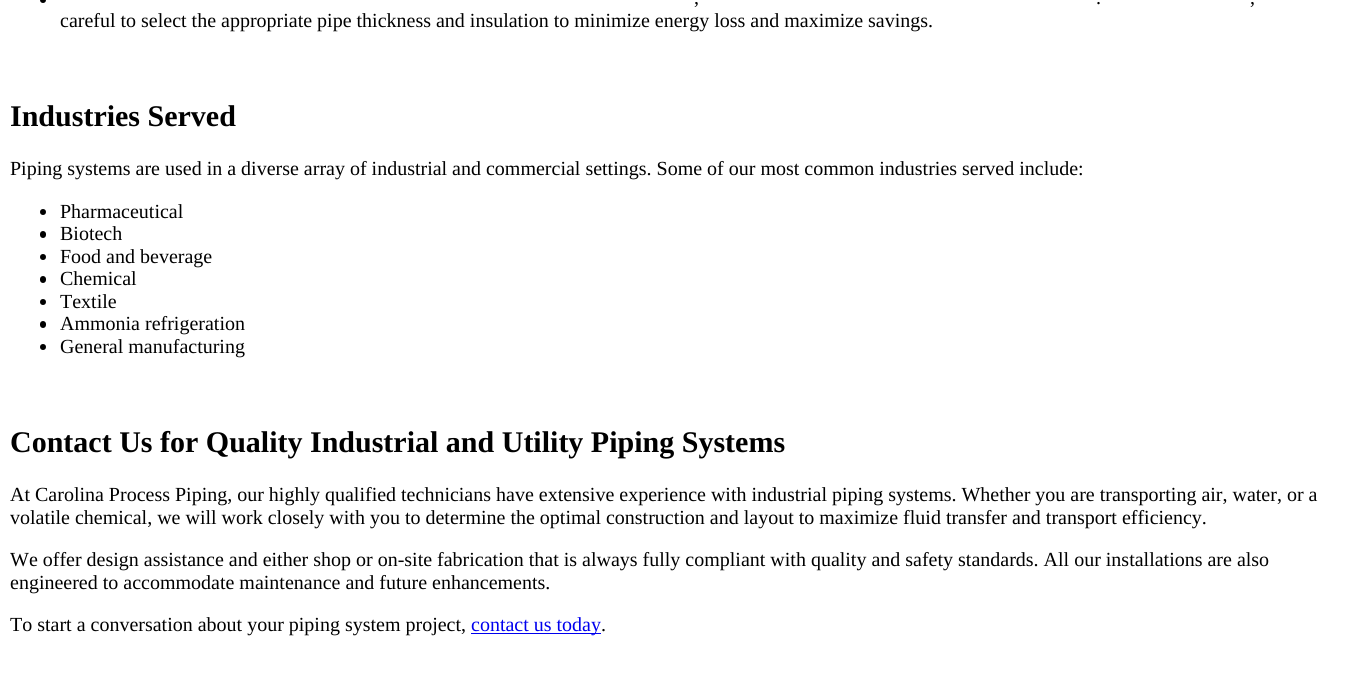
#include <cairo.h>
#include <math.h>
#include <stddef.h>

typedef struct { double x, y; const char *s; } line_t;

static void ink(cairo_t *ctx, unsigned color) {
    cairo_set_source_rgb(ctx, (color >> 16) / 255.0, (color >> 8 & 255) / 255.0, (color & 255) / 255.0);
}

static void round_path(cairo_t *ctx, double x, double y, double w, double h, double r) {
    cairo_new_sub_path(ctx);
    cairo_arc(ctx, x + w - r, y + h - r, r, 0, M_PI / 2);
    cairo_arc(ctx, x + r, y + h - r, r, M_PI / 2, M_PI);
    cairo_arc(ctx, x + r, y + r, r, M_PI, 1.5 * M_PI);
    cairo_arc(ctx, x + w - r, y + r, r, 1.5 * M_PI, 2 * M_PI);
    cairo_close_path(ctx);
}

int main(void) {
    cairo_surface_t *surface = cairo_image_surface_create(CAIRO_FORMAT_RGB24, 1364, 695);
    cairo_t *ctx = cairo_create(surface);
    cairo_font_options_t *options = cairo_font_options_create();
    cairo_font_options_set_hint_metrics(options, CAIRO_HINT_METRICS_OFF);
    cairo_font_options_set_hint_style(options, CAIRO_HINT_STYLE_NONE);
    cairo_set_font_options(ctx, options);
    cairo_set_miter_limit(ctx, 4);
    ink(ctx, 0xFFFFFF);
    cairo_paint(ctx);
    ink(ctx, 0x000000);
    cairo_arc(ctx, 43, 0, 3, 0, 2 * M_PI);
    cairo_fill(ctx);
    cairo_select_font_face(ctx, "Liberation Serif", CAIRO_FONT_SLANT_NORMAL, CAIRO_FONT_WEIGHT_NORMAL);
    cairo_set_font_size(ctx, 20);
    {
        static const line_t items[] = {
            {694, 4, ","},
            {1096, 4, "."},
            {1250, 4, ","},
            {60, 27, "careful to select the appropriate pipe thickness and insulation to minimize energy loss and maximize savings."},
        };
        for (size_t i = 0; i < sizeof items / sizeof *items; i++) {
            cairo_move_to(ctx, items[i].x, items[i].y);
            cairo_show_text(ctx, items[i].s);
        }
    }
    cairo_select_font_face(ctx, "Liberation Serif", CAIRO_FONT_SLANT_NORMAL, CAIRO_FONT_WEIGHT_BOLD);
    cairo_set_font_size(ctx, 30);
    cairo_move_to(ctx, 10, 126);
    cairo_show_text(ctx, "Industries Served");
    cairo_select_font_face(ctx, "Liberation Serif", CAIRO_FONT_SLANT_NORMAL, CAIRO_FONT_WEIGHT_NORMAL);
    cairo_set_font_size(ctx, 20);
    cairo_move_to(ctx, 10, 175);
    cairo_show_text(ctx, "Piping systems are used in a diverse array of industrial and commercial settings. Some of our most common industries served include:");
    cairo_new_path(ctx);
    cairo_arc(ctx, 43, 212, 3, 0, 2 * M_PI);
    cairo_fill(ctx);
    cairo_move_to(ctx, 60, 218);
    cairo_show_text(ctx, "Pharmaceutical");
    round_path(ctx, 40, 231, 6, 7, 3);
    cairo_fill(ctx);
    cairo_move_to(ctx, 60, 240);
    cairo_show_text(ctx, "Biotech");
    cairo_new_path(ctx);
    cairo_arc(ctx, 43, 257, 3, 0, 2 * M_PI);
    cairo_fill(ctx);
    cairo_move_to(ctx, 60, 263);
    cairo_show_text(ctx, "Food and beverage");
    round_path(ctx, 40, 276, 6, 7, 3);
    cairo_fill(ctx);
    cairo_move_to(ctx, 60, 285);
    cairo_show_text(ctx, "Chemical");
    cairo_new_path(ctx);
    cairo_arc(ctx, 43, 302, 3, 0, 2 * M_PI);
    cairo_fill(ctx);
    cairo_move_to(ctx, 60, 308);
    cairo_show_text(ctx, "Textile");
    round_path(ctx, 40, 321, 6, 7, 3);
    cairo_fill(ctx);
    cairo_move_to(ctx, 60, 330);
    cairo_show_text(ctx, "Ammonia refrigeration");
    cairo_new_path(ctx);
    cairo_arc(ctx, 43, 347, 3, 0, 2 * M_PI);
    cairo_fill(ctx);
    cairo_move_to(ctx, 60, 353);
    cairo_show_text(ctx, "General manufacturing");
    cairo_select_font_face(ctx, "Liberation Serif", CAIRO_FONT_SLANT_NORMAL, CAIRO_FONT_WEIGHT_BOLD);
    cairo_set_font_size(ctx, 30);
    cairo_move_to(ctx, 10, 452);
    cairo_show_text(ctx, "Contact Us for Quality Industrial and Utility Piping Systems");
    cairo_select_font_face(ctx, "Liberation Serif", CAIRO_FONT_SLANT_NORMAL, CAIRO_FONT_WEIGHT_NORMAL);
    cairo_set_font_size(ctx, 20);
    {
        static const line_t items[] = {
            {10, 501, "At Carolina Process Piping, our highly qualified technicians have extensive experience with industrial piping systems. Whether you are transporting air, water, or a"},
            {10, 524, "volatile chemical, we will work closely with you to determine the optimal construction and layout to maximize fluid transfer and transport efficiency."},
            {10, 566, "We offer design assistance and either shop or on-site fabrication that is always fully compliant with quality and safety standards. All our installations are also"},
            {10, 589, "engineered to accommodate maintenance and future enhancements."},
            {10, 631, "To start a conversation about your piping system project,"},
        };
        for (size_t i = 0; i < sizeof items / sizeof *items; i++) {
            cairo_move_to(ctx, items[i].x, items[i].y);
            cairo_show_text(ctx, items[i].s);
        }
    }
    ink(ctx, 0x0000EE);
    cairo_rectangle(ctx, 471, 633, 130, 1);
    cairo_fill(ctx);
    cairo_move_to(ctx, 471, 631);
    cairo_show_text(ctx, "contact us today");
    ink(ctx, 0x000000);
    cairo_move_to(ctx, 601, 631);
    cairo_show_text(ctx, ".");
    cairo_surface_write_to_png(surface, "image.png");
    cairo_font_options_destroy(options);
    cairo_destroy(ctx);
    cairo_surface_destroy(surface);
    return 0;
}
